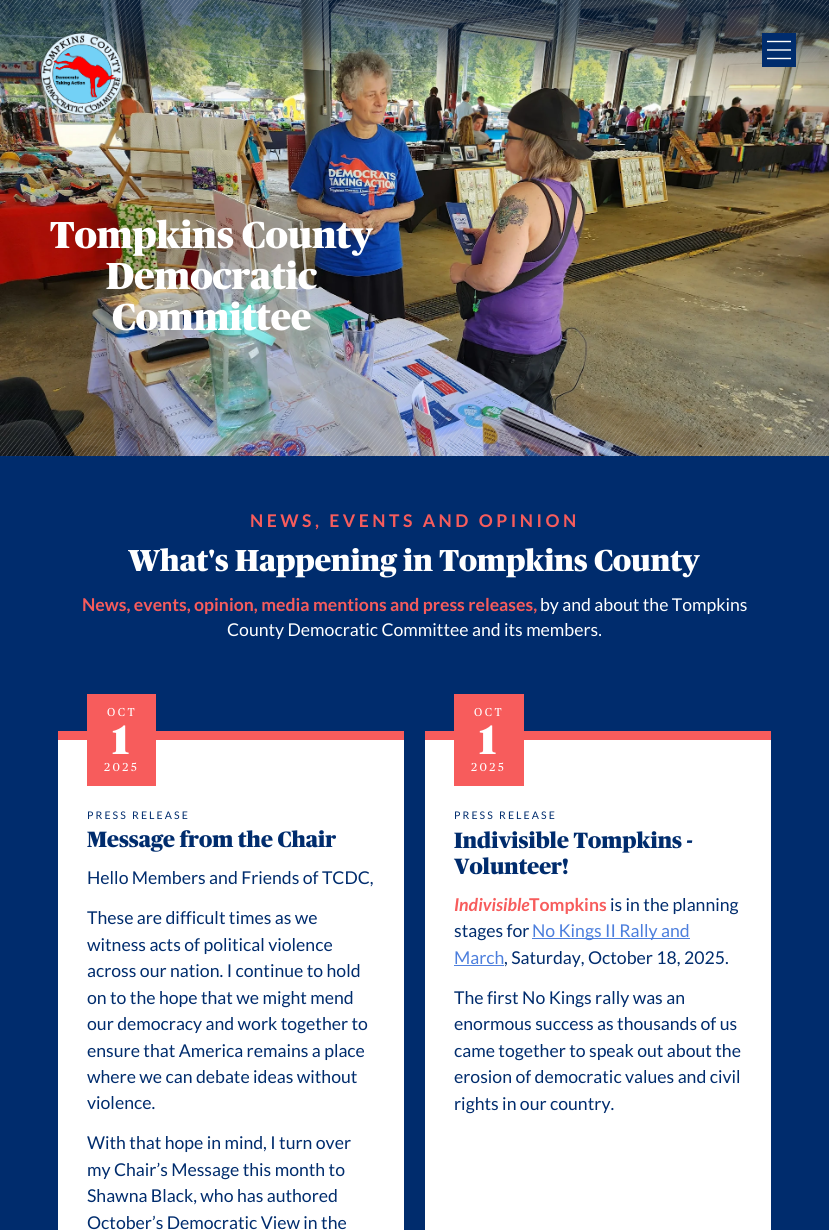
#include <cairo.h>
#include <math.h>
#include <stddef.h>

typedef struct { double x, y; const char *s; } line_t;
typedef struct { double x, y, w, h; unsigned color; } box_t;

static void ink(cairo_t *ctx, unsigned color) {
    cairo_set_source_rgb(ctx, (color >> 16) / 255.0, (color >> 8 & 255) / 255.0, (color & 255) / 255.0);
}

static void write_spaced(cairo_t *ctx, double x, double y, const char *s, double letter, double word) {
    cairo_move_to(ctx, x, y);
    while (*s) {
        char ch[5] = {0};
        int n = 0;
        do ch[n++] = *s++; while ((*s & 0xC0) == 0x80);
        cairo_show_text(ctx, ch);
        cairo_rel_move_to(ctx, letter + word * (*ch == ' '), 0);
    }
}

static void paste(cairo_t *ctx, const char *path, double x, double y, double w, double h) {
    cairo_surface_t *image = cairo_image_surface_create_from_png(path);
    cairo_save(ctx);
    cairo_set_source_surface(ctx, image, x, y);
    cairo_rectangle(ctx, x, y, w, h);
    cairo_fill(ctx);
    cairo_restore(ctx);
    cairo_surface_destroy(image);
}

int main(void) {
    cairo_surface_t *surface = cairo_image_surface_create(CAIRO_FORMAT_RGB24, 829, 1230);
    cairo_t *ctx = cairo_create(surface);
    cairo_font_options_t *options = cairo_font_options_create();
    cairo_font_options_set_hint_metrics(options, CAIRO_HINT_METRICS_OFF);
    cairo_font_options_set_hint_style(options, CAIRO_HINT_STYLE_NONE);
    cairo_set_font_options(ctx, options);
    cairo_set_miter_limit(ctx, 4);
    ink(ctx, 0x002C6D);
    cairo_paint(ctx);
    paste(ctx, "media/2.png", 0, 0, 829, 456);
    paste(ctx, "media/1.png", 0, 0, 829, 63);
    paste(ctx, "media/3.png", 41, 33, 82, 82);
    ink(ctx, 0x002C6D);
    cairo_rectangle(ctx, 762, 33, 34, 34);
    cairo_fill(ctx);
    cairo_new_path(ctx);
    cairo_move_to(ctx, 767, 41.5);
    cairo_line_to(ctx, 791, 41.5);
    cairo_move_to(ctx, 767, 50);
    cairo_line_to(ctx, 791, 50);
    cairo_move_to(ctx, 767, 58.5);
    cairo_line_to(ctx, 791, 58.5);
    ink(ctx, 0xFFFFFF);
    cairo_set_line_width(ctx, 1.4);
    cairo_stroke(ctx);
    cairo_select_font_face(ctx, "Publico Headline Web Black", CAIRO_FONT_SLANT_NORMAL, CAIRO_FONT_WEIGHT_NORMAL);
    cairo_set_font_size(ctx, 37.5);
    {
        static const line_t items[] = {
            {50, 248, "Tompkins County"},
            {106, 289, "Democratic"},
            {112, 330, "Committee"},
        };
        for (size_t i = 0; i < sizeof items / sizeof *items; i++) {
            cairo_move_to(ctx, items[i].x, items[i].y);
            cairo_show_text(ctx, items[i].s);
        }
    }
    paste(ctx, "media/4.png", 0, 393, 829, 64);
    cairo_select_font_face(ctx, "Lato", CAIRO_FONT_SLANT_NORMAL, CAIRO_FONT_WEIGHT_BOLD);
    cairo_set_font_size(ctx, 17.5);
    ink(ctx, 0xF75C5C);
    write_spaced(ctx, 250, 527, "NEWS, EVENTS AND OPINION", 3.5, 0);
    cairo_select_font_face(ctx, "Publico Headline Web Black", CAIRO_FONT_SLANT_NORMAL, CAIRO_FONT_WEIGHT_NORMAL);
    cairo_set_font_size(ctx, 30.25);
    ink(ctx, 0xFFFFFF);
    cairo_move_to(ctx, 128, 571);
    cairo_show_text(ctx, "What's Happening in Tompkins County");
    cairo_select_font_face(ctx, "Lato", CAIRO_FONT_SLANT_NORMAL, CAIRO_FONT_WEIGHT_BOLD);
    cairo_set_font_size(ctx, 17.65);
    ink(ctx, 0xF75C5C);
    cairo_move_to(ctx, 82, 611);
    cairo_show_text(ctx, "News, events, opinion, media mentions and press releases,");
    cairo_select_font_face(ctx, "Lato", CAIRO_FONT_SLANT_NORMAL, CAIRO_FONT_WEIGHT_NORMAL);
    ink(ctx, 0xFFFFFF);
    cairo_move_to(ctx, 540, 611);
    cairo_show_text(ctx, "by and about the Tompkins");
    cairo_move_to(ctx, 227, 636);
    cairo_show_text(ctx, "County Democratic Committee and its members.");
    {
        static const box_t items[] = {
            {58, 740, 346, 490, 0xFFFFFF},
            {58, 731, 346, 9, 0xF75C5C},
            {87, 694, 69, 92, 0xF75C5C},
        };
        for (size_t i = 0; i < sizeof items / sizeof *items; i++) {
            ink(ctx, items[i].color);
            cairo_rectangle(ctx, items[i].x, items[i].y, items[i].w, items[i].h);
            cairo_fill(ctx);
        }
    }
    cairo_select_font_face(ctx, "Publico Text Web", CAIRO_FONT_SLANT_NORMAL, CAIRO_FONT_WEIGHT_NORMAL);
    cairo_set_font_size(ctx, 11.5);
    ink(ctx, 0xFFFFFF);
    write_spaced(ctx, 107, 716, "OCT", 2.5, 0);
    cairo_select_font_face(ctx, "Publico Headline Web Black", CAIRO_FONT_SLANT_NORMAL, CAIRO_FONT_WEIGHT_NORMAL);
    cairo_set_font_size(ctx, 41);
    write_spaced(ctx, 112, 754, "1", 2.5, 0);
    cairo_select_font_face(ctx, "Publico Text Web", CAIRO_FONT_SLANT_NORMAL, CAIRO_FONT_WEIGHT_NORMAL);
    cairo_set_font_size(ctx, 11.5);
    write_spaced(ctx, 104, 771, "2025", 2.5, 0);
    cairo_select_font_face(ctx, "Lato", CAIRO_FONT_SLANT_NORMAL, CAIRO_FONT_WEIGHT_NORMAL);
    cairo_set_font_size(ctx, 10.5);
    ink(ctx, 0x002C6D);
    write_spaced(ctx, 87, 819, "PRESS RELEASE", 2.1, 0);
    cairo_select_font_face(ctx, "Publico Headline Web Black", CAIRO_FONT_SLANT_NORMAL, CAIRO_FONT_WEIGHT_NORMAL);
    cairo_set_font_size(ctx, 22.1);
    cairo_move_to(ctx, 87, 847);
    cairo_show_text(ctx, "Message from the Chair");
    cairo_select_font_face(ctx, "Lato", CAIRO_FONT_SLANT_NORMAL, CAIRO_FONT_WEIGHT_NORMAL);
    cairo_set_font_size(ctx, 17.65);
    {
        static const line_t items[] = {
            {87, 884, "Hello Members and Friends of TCDC,"},
            {87, 924, "These are difficult times as we"},
            {87, 951, "witness acts of political violence"},
            {87, 977, "across our nation. I continue to hold"},
            {87, 1004, "on to the hope that we might mend"},
            {87, 1030, "our democracy and work together to"},
            {87, 1057, "ensure that America remains a place"},
            {87, 1083, "where we can debate ideas without"},
            {87, 1109, "violence."},
            {87, 1149, "With that hope in mind, I turn over"},
            {87, 1176, "my Chair’s Message this month to"},
            {87, 1202, "Shawna Black, who has authored"},
            {87, 1229, "October’s Democratic View in the"},
        };
        for (size_t i = 0; i < sizeof items / sizeof *items; i++) {
            cairo_move_to(ctx, items[i].x, items[i].y);
            cairo_show_text(ctx, items[i].s);
        }
    }
    {
        static const box_t items[] = {
            {425, 740, 346, 490, 0xFFFFFF},
            {425, 731, 346, 9, 0xF75C5C},
            {454, 694, 70, 92, 0xF75C5C},
        };
        for (size_t i = 0; i < sizeof items / sizeof *items; i++) {
            ink(ctx, items[i].color);
            cairo_rectangle(ctx, items[i].x, items[i].y, items[i].w, items[i].h);
            cairo_fill(ctx);
        }
    }
    cairo_select_font_face(ctx, "Publico Text Web", CAIRO_FONT_SLANT_NORMAL, CAIRO_FONT_WEIGHT_NORMAL);
    cairo_set_font_size(ctx, 11.5);
    ink(ctx, 0xFFFFFF);
    write_spaced(ctx, 474, 716, "OCT", 2.5, 0);
    cairo_select_font_face(ctx, "Publico Headline Web Black", CAIRO_FONT_SLANT_NORMAL, CAIRO_FONT_WEIGHT_NORMAL);
    cairo_set_font_size(ctx, 41);
    write_spaced(ctx, 479, 754, "1", 2.5, 0);
    cairo_select_font_face(ctx, "Publico Text Web", CAIRO_FONT_SLANT_NORMAL, CAIRO_FONT_WEIGHT_NORMAL);
    cairo_set_font_size(ctx, 11.5);
    write_spaced(ctx, 471, 771, "2025", 2.5, 0);
    cairo_select_font_face(ctx, "Lato", CAIRO_FONT_SLANT_NORMAL, CAIRO_FONT_WEIGHT_NORMAL);
    cairo_set_font_size(ctx, 10.5);
    ink(ctx, 0x002C6D);
    write_spaced(ctx, 454, 819, "PRESS RELEASE", 2.1, 0);
    cairo_select_font_face(ctx, "Publico Headline Web Black", CAIRO_FONT_SLANT_NORMAL, CAIRO_FONT_WEIGHT_NORMAL);
    cairo_set_font_size(ctx, 22.1);
    cairo_move_to(ctx, 454, 848);
    cairo_show_text(ctx, "Indivisible Tompkins -");
    cairo_move_to(ctx, 454, 874);
    cairo_show_text(ctx, "Volunteer!");
    cairo_select_font_face(ctx, "Lato", CAIRO_FONT_SLANT_ITALIC, CAIRO_FONT_WEIGHT_BOLD);
    cairo_set_font_size(ctx, 17.65);
    ink(ctx, 0xF75C5C);
    cairo_move_to(ctx, 454, 911);
    cairo_show_text(ctx, "Indivisible");
    cairo_select_font_face(ctx, "Lato", CAIRO_FONT_SLANT_NORMAL, CAIRO_FONT_WEIGHT_BOLD);
    cairo_move_to(ctx, 529, 911);
    cairo_show_text(ctx, "Tompkins");
    cairo_select_font_face(ctx, "Lato", CAIRO_FONT_SLANT_NORMAL, CAIRO_FONT_WEIGHT_NORMAL);
    ink(ctx, 0x002C6D);
    cairo_move_to(ctx, 610, 911);
    cairo_show_text(ctx, "is in the planning");
    cairo_move_to(ctx, 454, 937);
    cairo_show_text(ctx, "stages for");
    ink(ctx, 0x4D7FDD);
    cairo_rectangle(ctx, 532, 938, 158, 1);
    cairo_fill(ctx);
    cairo_move_to(ctx, 532, 937);
    cairo_show_text(ctx, "No Kings II Rally and");
    cairo_move_to(ctx, 454, 964);
    cairo_show_text(ctx, "March");
    cairo_rectangle(ctx, 454, 965, 50, 1);
    cairo_fill(ctx);
    ink(ctx, 0x002C6D);
    {
        static const line_t items[] = {
            {504, 964, ", Saturday, October 18, 2025."},
            {454, 1004, "The first No Kings rally was an"},
            {454, 1030, "enormous success as thousands of us"},
            {454, 1057, "came together to speak out about the"},
            {454, 1083, "erosion of democratic values and civil"},
            {454, 1110, "rights in our country."},
        };
        for (size_t i = 0; i < sizeof items / sizeof *items; i++) {
            cairo_move_to(ctx, items[i].x, items[i].y);
            cairo_show_text(ctx, items[i].s);
        }
    }
    cairo_surface_write_to_png(surface, "image.png");
    cairo_font_options_destroy(options);
    cairo_destroy(ctx);
    cairo_surface_destroy(surface);
    return 0;
}
